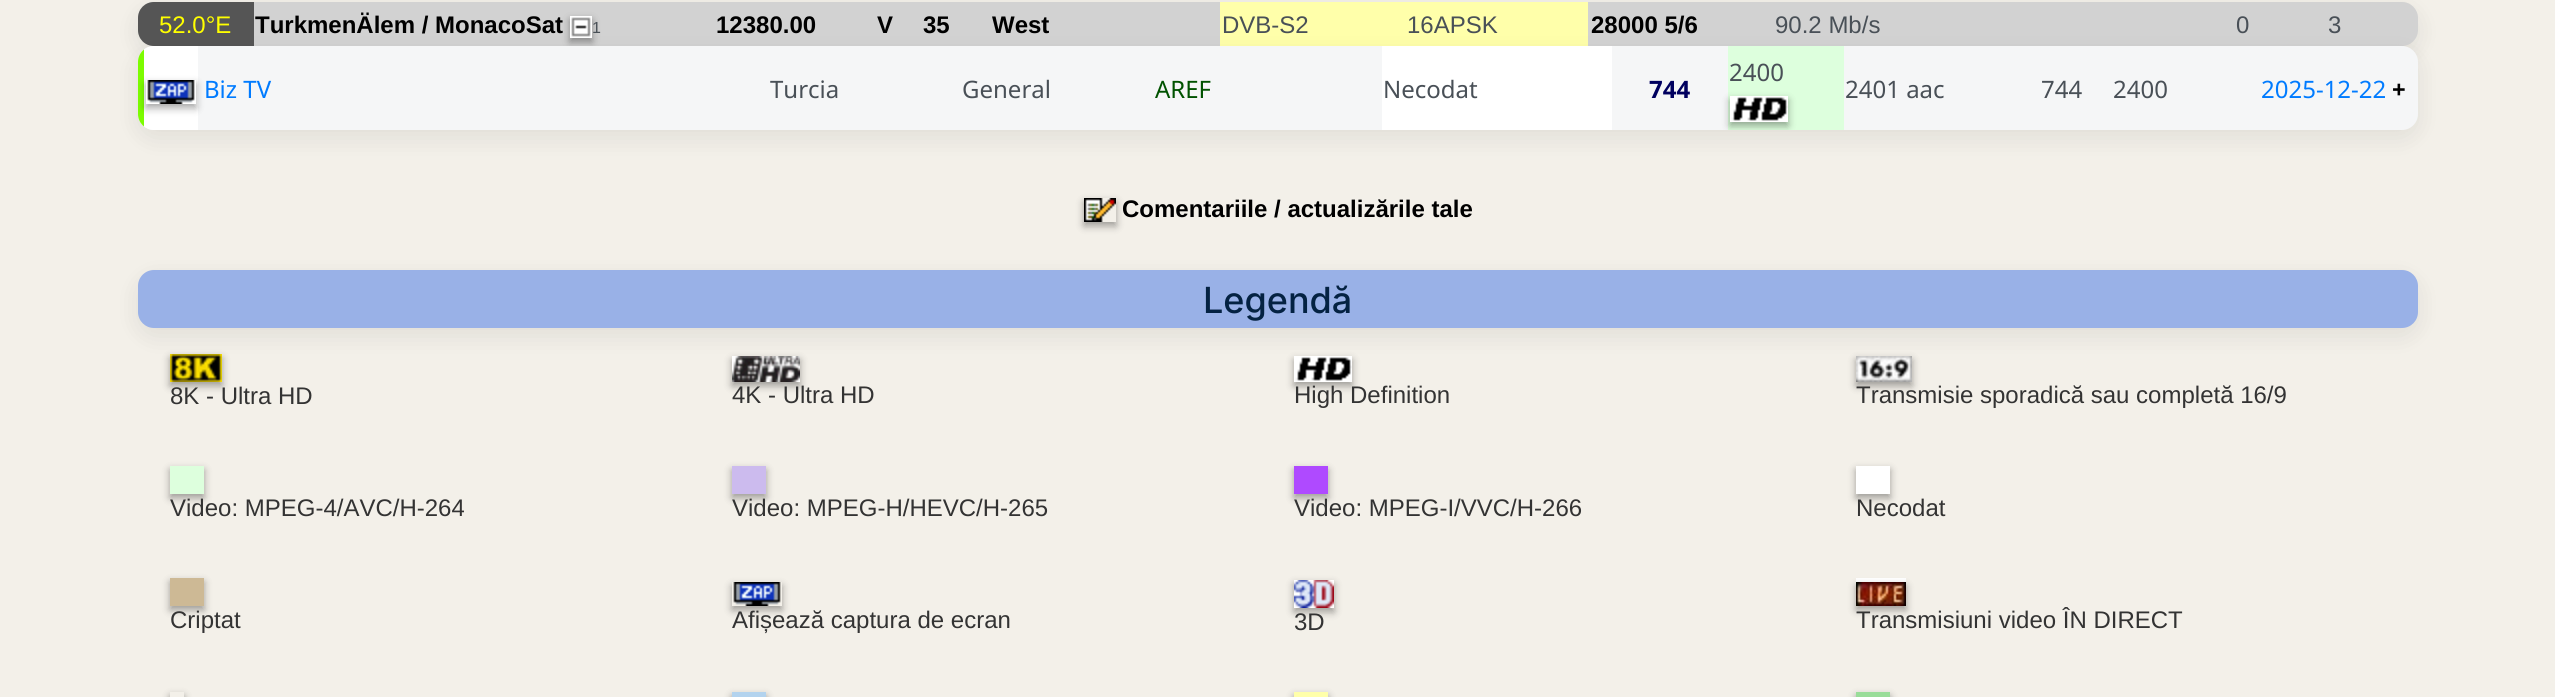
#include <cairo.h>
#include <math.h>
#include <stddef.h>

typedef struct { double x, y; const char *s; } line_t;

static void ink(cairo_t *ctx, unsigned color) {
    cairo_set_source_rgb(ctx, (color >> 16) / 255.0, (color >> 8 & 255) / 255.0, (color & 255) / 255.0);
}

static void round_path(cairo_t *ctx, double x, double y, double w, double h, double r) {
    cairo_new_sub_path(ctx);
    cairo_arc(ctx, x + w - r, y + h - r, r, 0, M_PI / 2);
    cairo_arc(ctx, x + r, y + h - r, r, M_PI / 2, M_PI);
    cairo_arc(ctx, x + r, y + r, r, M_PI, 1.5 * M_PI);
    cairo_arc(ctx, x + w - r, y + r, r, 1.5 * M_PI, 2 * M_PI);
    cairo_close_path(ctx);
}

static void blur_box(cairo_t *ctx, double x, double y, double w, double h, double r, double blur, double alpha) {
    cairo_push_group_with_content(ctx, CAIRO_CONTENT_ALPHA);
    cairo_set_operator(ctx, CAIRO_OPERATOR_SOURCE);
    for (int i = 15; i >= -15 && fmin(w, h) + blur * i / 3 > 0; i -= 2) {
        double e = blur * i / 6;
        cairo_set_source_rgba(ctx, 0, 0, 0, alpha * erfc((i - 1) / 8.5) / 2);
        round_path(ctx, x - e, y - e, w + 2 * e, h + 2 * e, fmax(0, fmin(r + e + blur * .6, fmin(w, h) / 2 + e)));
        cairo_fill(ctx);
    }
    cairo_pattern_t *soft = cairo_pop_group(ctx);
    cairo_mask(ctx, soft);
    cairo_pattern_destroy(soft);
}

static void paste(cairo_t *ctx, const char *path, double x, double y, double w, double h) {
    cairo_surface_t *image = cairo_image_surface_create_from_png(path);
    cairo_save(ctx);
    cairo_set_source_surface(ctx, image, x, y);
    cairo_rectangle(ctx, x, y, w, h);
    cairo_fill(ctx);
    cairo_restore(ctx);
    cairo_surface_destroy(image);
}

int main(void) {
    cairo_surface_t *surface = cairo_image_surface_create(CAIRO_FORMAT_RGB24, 2555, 697);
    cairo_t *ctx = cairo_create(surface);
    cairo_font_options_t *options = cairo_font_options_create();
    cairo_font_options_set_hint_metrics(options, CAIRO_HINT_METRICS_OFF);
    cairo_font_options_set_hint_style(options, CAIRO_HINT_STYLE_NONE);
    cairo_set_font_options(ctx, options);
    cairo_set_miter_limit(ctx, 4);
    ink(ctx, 0xF3F0E9);
    cairo_paint(ctx);
    ink(ctx, 0x000000);
    blur_box(ctx, 138, 10, 2280, 44, 16, 12, 0.08);
    ink(ctx, 0xD2D2D2);
    round_path(ctx, 138, 2, 2280, 44, 16);
    cairo_fill(ctx);
    ink(ctx, 0x555555);
    cairo_new_path(ctx);
    cairo_move_to(ctx, 154, 2);
    cairo_line_to(ctx, 254, 2);
    cairo_line_to(ctx, 254, 46);
    cairo_line_to(ctx, 154, 46);
    cairo_curve_to(ctx, 145, 46, 138, 39, 138, 30);
    cairo_line_to(ctx, 138, 18);
    cairo_curve_to(ctx, 138, 9, 145, 2, 154, 2);
    cairo_close_path(ctx);
    cairo_fill(ctx);
    cairo_select_font_face(ctx, "Liberation Sans", CAIRO_FONT_SLANT_NORMAL, CAIRO_FONT_WEIGHT_NORMAL);
    cairo_set_font_size(ctx, 24);
    ink(ctx, 0xFFFF00);
    cairo_move_to(ctx, 159, 33);
    cairo_show_text(ctx, "52.0°E");
    cairo_select_font_face(ctx, "Liberation Sans", CAIRO_FONT_SLANT_NORMAL, CAIRO_FONT_WEIGHT_BOLD);
    ink(ctx, 0x000000);
    cairo_move_to(ctx, 255, 33);
    cairo_show_text(ctx, "TurkmenÄlem / MonacoSat");
    ink(ctx, 0x000000);
    blur_box(ctx, 570, 20, 22, 22, 0, 4, 0.35);
    paste(ctx, "media/1.png", 570, 16, 22, 22);
    cairo_select_font_face(ctx, "Liberation Sans", CAIRO_FONT_SLANT_NORMAL, CAIRO_FONT_WEIGHT_NORMAL);
    cairo_set_font_size(ctx, 16);
    ink(ctx, 0x495057);
    cairo_move_to(ctx, 592, 33);
    cairo_show_text(ctx, "1");
    cairo_select_font_face(ctx, "Liberation Sans", CAIRO_FONT_SLANT_NORMAL, CAIRO_FONT_WEIGHT_BOLD);
    cairo_set_font_size(ctx, 24);
    ink(ctx, 0x000000);
    {
        static const line_t items[] = {
            {716, 33, "12380.00"},
            {877, 33, "V"},
            {923, 33, "35"},
            {992, 33, "West"},
        };
        for (size_t i = 0; i < sizeof items / sizeof *items; i++) {
            cairo_move_to(ctx, items[i].x, items[i].y);
            cairo_show_text(ctx, items[i].s);
        }
    }
    ink(ctx, 0xFFFFAA);
    cairo_rectangle(ctx, 1220, 2, 368, 44);
    cairo_fill(ctx);
    cairo_select_font_face(ctx, "Liberation Sans", CAIRO_FONT_SLANT_NORMAL, CAIRO_FONT_WEIGHT_NORMAL);
    ink(ctx, 0x495057);
    cairo_move_to(ctx, 1222, 33);
    cairo_show_text(ctx, "DVB-S2");
    cairo_move_to(ctx, 1407, 33);
    cairo_show_text(ctx, "16APSK");
    cairo_select_font_face(ctx, "Liberation Sans", CAIRO_FONT_SLANT_NORMAL, CAIRO_FONT_WEIGHT_BOLD);
    ink(ctx, 0x000000);
    cairo_move_to(ctx, 1591, 33);
    cairo_show_text(ctx, "28000 5/6");
    cairo_select_font_face(ctx, "Liberation Sans", CAIRO_FONT_SLANT_NORMAL, CAIRO_FONT_WEIGHT_NORMAL);
    ink(ctx, 0x495057);
    {
        static const line_t items[] = {
            {1775, 33, "90.2 Mb/s"},
            {2236, 33, "0"},
            {2328, 33, "3"},
        };
        for (size_t i = 0; i < sizeof items / sizeof *items; i++) {
            cairo_move_to(ctx, items[i].x, items[i].y);
            cairo_show_text(ctx, items[i].s);
        }
    }
    ink(ctx, 0x000000);
    blur_box(ctx, 138, 54, 2280, 84, 16, 12, 0.08);
    ink(ctx, 0xF5F6F7);
    round_path(ctx, 138, 46, 2280, 84, 16);
    cairo_fill(ctx);
    cairo_save(ctx);
    round_path(ctx, 138, 46, 2280, 84, 16);
    cairo_clip(ctx);
    ink(ctx, 0xFFFFFF);
    cairo_rectangle(ctx, 144, 46, 54, 84);
    cairo_fill(ctx);
    ink(ctx, 0x7CFC00);
    cairo_rectangle(ctx, 138, 46, 6, 84);
    cairo_fill(ctx);
    cairo_restore(ctx);
    cairo_save(ctx);
    cairo_set_fill_rule(ctx, CAIRO_FILL_RULE_EVEN_ODD);
    cairo_new_path(ctx);
    cairo_move_to(ctx, 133, 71);
    cairo_line_to(ctx, 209, 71);
    cairo_line_to(ctx, 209, 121);
    cairo_line_to(ctx, 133, 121);
    cairo_close_path(ctx);
    cairo_move_to(ctx, 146, 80);
    cairo_line_to(ctx, 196, 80);
    cairo_line_to(ctx, 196, 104);
    cairo_line_to(ctx, 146, 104);
    cairo_close_path(ctx);
    cairo_clip(ctx);
    ink(ctx, 0x000000);
    blur_box(ctx, 146, 84, 50, 24, 0, 4, 0.35);
    cairo_restore(ctx);
    paste(ctx, "media/2.png", 147, 80, 48, 24);
    ink(ctx, 0xDDFFDD);
    cairo_rectangle(ctx, 1728, 46, 116, 84);
    cairo_fill(ctx);
    cairo_select_font_face(ctx, "Noto Sans", CAIRO_FONT_SLANT_NORMAL, CAIRO_FONT_WEIGHT_NORMAL);
    ink(ctx, 0x495057);
    cairo_move_to(ctx, 1729, 81);
    cairo_show_text(ctx, "2400");
    cairo_save(ctx);
    round_path(ctx, 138, 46, 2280, 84, 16);
    cairo_clip(ctx);
    ink(ctx, 0x000000);
    blur_box(ctx, 1730, 100, 58, 26, 0, 4, 0.35);
    cairo_restore(ctx);
    paste(ctx, "media/3.png", 1730, 96, 58, 26);
    ink(ctx, 0x007BFF);
    cairo_move_to(ctx, 204, 98);
    cairo_show_text(ctx, "Biz TV");
    ink(ctx, 0x495057);
    cairo_move_to(ctx, 770, 98);
    cairo_show_text(ctx, "Turcia");
    cairo_move_to(ctx, 962, 98);
    cairo_show_text(ctx, "General");
    ink(ctx, 0x005200);
    cairo_move_to(ctx, 1155, 98);
    cairo_show_text(ctx, "AREF");
    ink(ctx, 0xFFFFFF);
    cairo_rectangle(ctx, 1382, 46, 230, 84);
    cairo_fill(ctx);
    ink(ctx, 0x495057);
    cairo_move_to(ctx, 1383, 98);
    cairo_show_text(ctx, "Necodat");
    cairo_select_font_face(ctx, "Noto Sans", CAIRO_FONT_SLANT_NORMAL, CAIRO_FONT_WEIGHT_BOLD);
    ink(ctx, 0x00005F);
    cairo_move_to(ctx, 1649, 98);
    cairo_show_text(ctx, "744");
    cairo_select_font_face(ctx, "Noto Sans", CAIRO_FONT_SLANT_NORMAL, CAIRO_FONT_WEIGHT_NORMAL);
    ink(ctx, 0x495057);
    {
        static const line_t items[] = {
            {1845, 98, "2401 aac"},
            {2041, 98, "744"},
            {2113, 98, "2400"},
        };
        for (size_t i = 0; i < sizeof items / sizeof *items; i++) {
            cairo_move_to(ctx, items[i].x, items[i].y);
            cairo_show_text(ctx, items[i].s);
        }
    }
    ink(ctx, 0x007BFF);
    cairo_move_to(ctx, 2261, 98);
    cairo_show_text(ctx, "2025-12-22");
    cairo_select_font_face(ctx, "Noto Sans", CAIRO_FONT_SLANT_NORMAL, CAIRO_FONT_WEIGHT_BOLD);
    ink(ctx, 0x000000);
    cairo_move_to(ctx, 2392, 98);
    cairo_show_text(ctx, "+");
    cairo_save(ctx);
    cairo_set_fill_rule(ctx, CAIRO_FILL_RULE_EVEN_ODD);
    cairo_new_path(ctx);
    cairo_move_to(ctx, 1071, 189);
    cairo_line_to(ctx, 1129, 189);
    cairo_line_to(ctx, 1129, 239);
    cairo_line_to(ctx, 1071, 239);
    cairo_close_path(ctx);
    cairo_move_to(ctx, 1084, 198);
    cairo_line_to(ctx, 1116, 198);
    cairo_line_to(ctx, 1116, 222);
    cairo_line_to(ctx, 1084, 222);
    cairo_close_path(ctx);
    cairo_clip(ctx);
    ink(ctx, 0x000000);
    blur_box(ctx, 1084, 202, 32, 24, 0, 4, 0.35);
    cairo_restore(ctx);
    paste(ctx, "media/4.png", 1084, 198, 32, 24);
    cairo_select_font_face(ctx, "Liberation Sans", CAIRO_FONT_SLANT_NORMAL, CAIRO_FONT_WEIGHT_BOLD);
    cairo_move_to(ctx, 1122, 217);
    cairo_show_text(ctx, "Comentariile / actualizările tale");
    ink(ctx, 0x000000);
    blur_box(ctx, 170, 358, 52, 28, 0, 4, 0.35);
    paste(ctx, "media/5.png", 170, 354, 52, 28);
    blur_box(ctx, 732, 360, 68, 26, 0, 4, 0.35);
    paste(ctx, "media/6.png", 732, 356, 68, 26);
    blur_box(ctx, 1294, 360, 58, 26, 0, 4, 0.35);
    paste(ctx, "media/3.png", 1294, 356, 58, 26);
    blur_box(ctx, 1856, 360, 56, 26, 0, 4, 0.35);
    paste(ctx, "media/7.png", 1856, 356, 56, 26);
    blur_box(ctx, 138, 278, 2280, 58, 16, 12, 0.08);
    ink(ctx, 0x99B1E7);
    round_path(ctx, 138, 270, 2280, 58, 16);
    cairo_fill(ctx);
    cairo_select_font_face(ctx, "Inter Medium", CAIRO_FONT_SLANT_NORMAL, CAIRO_FONT_WEIGHT_NORMAL);
    cairo_set_font_size(ctx, 36);
    ink(ctx, 0x042242);
    cairo_move_to(ctx, 1203, 313);
    cairo_show_text(ctx, "Legendă");
    cairo_select_font_face(ctx, "Liberation Sans", CAIRO_FONT_SLANT_NORMAL, CAIRO_FONT_WEIGHT_NORMAL);
    cairo_set_font_size(ctx, 24);
    ink(ctx, 0x333333);
    {
        static const line_t items[] = {
            {170, 404, "8K - Ultra HD"},
            {732, 403, "4K - Ultra HD"},
            {1294, 403, "High Definition"},
            {1856, 403, "Transmisie sporadică sau completă 16/9"},
        };
        for (size_t i = 0; i < sizeof items / sizeof *items; i++) {
            cairo_move_to(ctx, items[i].x, items[i].y);
            cairo_show_text(ctx, items[i].s);
        }
    }
    ink(ctx, 0x000000);
    blur_box(ctx, 170, 470, 34, 28, 0, 4, 0.35);
    ink(ctx, 0xDDFFDD);
    cairo_rectangle(ctx, 170, 466, 34, 28);
    cairo_fill(ctx);
    ink(ctx, 0x333333);
    cairo_move_to(ctx, 170, 516);
    cairo_show_text(ctx, "Video: MPEG-4/AVC/H-264");
    ink(ctx, 0x000000);
    blur_box(ctx, 732, 470, 34, 28, 0, 4, 0.35);
    ink(ctx, 0xCCBBEE);
    cairo_rectangle(ctx, 732, 466, 34, 28);
    cairo_fill(ctx);
    ink(ctx, 0x333333);
    cairo_move_to(ctx, 732, 516);
    cairo_show_text(ctx, "Video: MPEG-H/HEVC/H-265");
    ink(ctx, 0x000000);
    blur_box(ctx, 1294, 470, 34, 28, 0, 4, 0.35);
    ink(ctx, 0xAF4AFF);
    cairo_rectangle(ctx, 1294, 466, 34, 28);
    cairo_fill(ctx);
    ink(ctx, 0x333333);
    cairo_move_to(ctx, 1294, 516);
    cairo_show_text(ctx, "Video: MPEG-I/VVC/H-266");
    ink(ctx, 0x000000);
    blur_box(ctx, 1856, 470, 34, 28, 0, 4, 0.35);
    ink(ctx, 0xFFFFFF);
    cairo_rectangle(ctx, 1856, 466, 34, 28);
    cairo_fill(ctx);
    ink(ctx, 0x333333);
    cairo_move_to(ctx, 1856, 516);
    cairo_show_text(ctx, "Necodat");
    ink(ctx, 0x000000);
    blur_box(ctx, 170, 582, 34, 28, 0, 4, 0.35);
    ink(ctx, 0xCDB995);
    cairo_rectangle(ctx, 170, 578, 34, 28);
    cairo_fill(ctx);
    ink(ctx, 0x333333);
    cairo_move_to(ctx, 170, 628);
    cairo_show_text(ctx, "Criptat");
    cairo_save(ctx);
    cairo_set_fill_rule(ctx, CAIRO_FILL_RULE_EVEN_ODD);
    cairo_new_path(ctx);
    cairo_move_to(ctx, 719, 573);
    cairo_line_to(ctx, 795, 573);
    cairo_line_to(ctx, 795, 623);
    cairo_line_to(ctx, 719, 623);
    cairo_close_path(ctx);
    cairo_move_to(ctx, 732, 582);
    cairo_line_to(ctx, 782, 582);
    cairo_line_to(ctx, 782, 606);
    cairo_line_to(ctx, 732, 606);
    cairo_close_path(ctx);
    cairo_clip(ctx);
    ink(ctx, 0x000000);
    blur_box(ctx, 732, 586, 50, 24, 0, 4, 0.35);
    cairo_restore(ctx);
    paste(ctx, "media/8.png", 733, 582, 48, 24);
    cairo_move_to(ctx, 732, 628);
    cairo_show_text(ctx, "Afișează captura de ecran");
    ink(ctx, 0x000000);
    blur_box(ctx, 1294, 584, 40, 28, 0, 4, 0.35);
    paste(ctx, "media/9.png", 1294, 580, 40, 28);
    ink(ctx, 0x333333);
    cairo_move_to(ctx, 1294, 630);
    cairo_show_text(ctx, "3D");
    ink(ctx, 0xFFFFFF);
    cairo_rectangle(ctx, 1856, 578, 50, 4);
    cairo_fill(ctx);
    ink(ctx, 0x000000);
    blur_box(ctx, 1856, 586, 50, 24, 0, 4, 0.35);
    paste(ctx, "media/10.png", 1856, 582, 50, 24);
    ink(ctx, 0x333333);
    cairo_move_to(ctx, 1856, 628);
    cairo_show_text(ctx, "Transmisiuni video ÎN DIRECT");
    cairo_save(ctx);
    cairo_set_fill_rule(ctx, CAIRO_FILL_RULE_EVEN_ODD);
    cairo_new_path(ctx);
    cairo_move_to(ctx, 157, 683);
    cairo_line_to(ctx, 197, 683);
    cairo_line_to(ctx, 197, 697);
    cairo_line_to(ctx, 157, 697);
    cairo_close_path(ctx);
    cairo_move_to(ctx, 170, 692);
    cairo_line_to(ctx, 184, 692);
    cairo_line_to(ctx, 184, 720);
    cairo_line_to(ctx, 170, 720);
    cairo_close_path(ctx);
    cairo_clip(ctx);
    ink(ctx, 0x000000);
    blur_box(ctx, 170, 696, 14, 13, 0, 4, 0.35);
    cairo_restore(ctx);
    ink(ctx, 0x000000);
    blur_box(ctx, 732, 696, 34, 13, 0, 4, 0.35);
    ink(ctx, 0xB3D3EE);
    cairo_rectangle(ctx, 732, 692, 34, 5);
    cairo_fill(ctx);
    ink(ctx, 0x000000);
    blur_box(ctx, 1294, 696, 34, 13, 0, 4, 0.35);
    ink(ctx, 0xFFFFAA);
    cairo_rectangle(ctx, 1294, 692, 34, 5);
    cairo_fill(ctx);
    ink(ctx, 0x000000);
    blur_box(ctx, 1856, 696, 34, 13, 0, 4, 0.35);
    ink(ctx, 0x99DD99);
    cairo_rectangle(ctx, 1856, 692, 34, 5);
    cairo_fill(ctx);
    cairo_surface_write_to_png(surface, "image.png");
    cairo_font_options_destroy(options);
    cairo_destroy(ctx);
    cairo_surface_destroy(surface);
    return 0;
}
